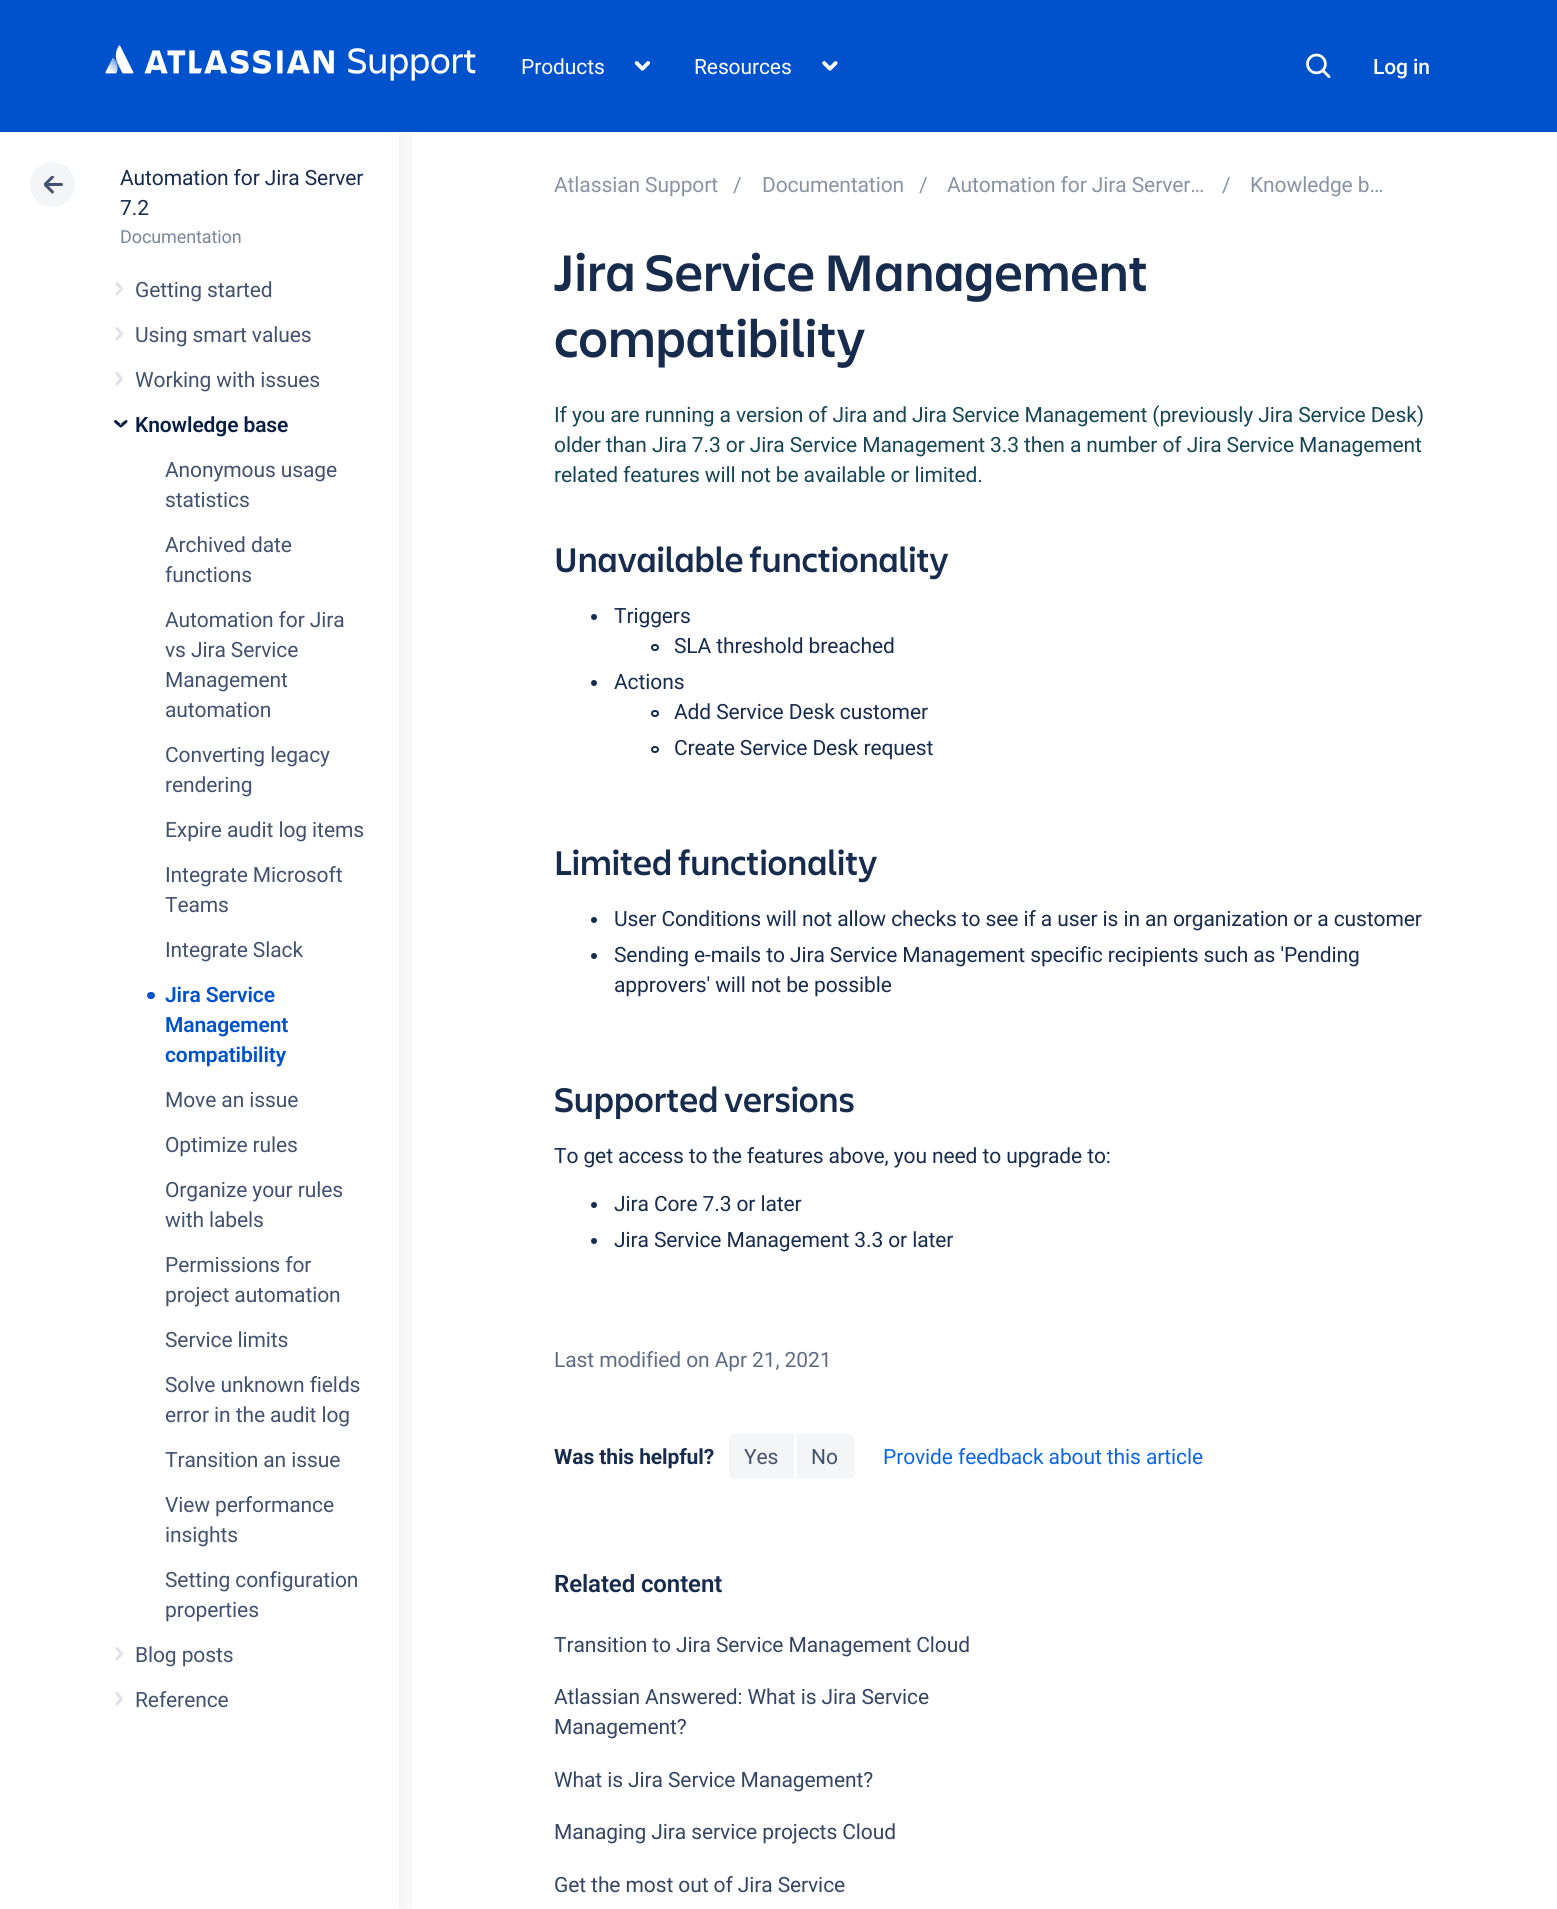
#include <cairo.h>
#include <math.h>
#include <stddef.h>

typedef struct { double x, y; const char *s; } line_t;

static void ink(cairo_t *ctx, unsigned color) {
    cairo_set_source_rgb(ctx, (color >> 16) / 255.0, (color >> 8 & 255) / 255.0, (color & 255) / 255.0);
}

static void write_spaced(cairo_t *ctx, double x, double y, const char *s, double letter, double word) {
    cairo_move_to(ctx, x, y);
    while (*s) {
        char ch[5] = {0};
        int n = 0;
        do ch[n++] = *s++; while ((*s & 0xC0) == 0x80);
        cairo_show_text(ctx, ch);
        cairo_rel_move_to(ctx, letter + word * (*ch == ' '), 0);
    }
}

static void round_path(cairo_t *ctx, double x, double y, double w, double h, double r) {
    cairo_new_sub_path(ctx);
    cairo_arc(ctx, x + w - r, y + h - r, r, 0, M_PI / 2);
    cairo_arc(ctx, x + r, y + h - r, r, M_PI / 2, M_PI);
    cairo_arc(ctx, x + r, y + r, r, M_PI, 1.5 * M_PI);
    cairo_arc(ctx, x + w - r, y + r, r, 1.5 * M_PI, 2 * M_PI);
    cairo_close_path(ctx);
}

static void blur_box(cairo_t *ctx, double x, double y, double w, double h, double r, double blur, double alpha) {
    cairo_push_group_with_content(ctx, CAIRO_CONTENT_ALPHA);
    cairo_set_operator(ctx, CAIRO_OPERATOR_SOURCE);
    for (int i = 15; i >= -15 && fmin(w, h) + blur * i / 3 > 0; i -= 2) {
        double e = blur * i / 6;
        cairo_set_source_rgba(ctx, 0, 0, 0, alpha * erfc((i - 1) / 8.5) / 2);
        round_path(ctx, x - e, y - e, w + 2 * e, h + 2 * e, fmax(0, fmin(r + e + blur * .6, fmin(w, h) / 2 + e)));
        cairo_fill(ctx);
    }
    cairo_pattern_t *soft = cairo_pop_group(ctx);
    cairo_mask(ctx, soft);
    cairo_pattern_destroy(soft);
}

static void paste(cairo_t *ctx, const char *path, double x, double y, double w, double h) {
    cairo_surface_t *image = cairo_image_surface_create_from_png(path);
    cairo_save(ctx);
    cairo_set_source_surface(ctx, image, x, y);
    cairo_rectangle(ctx, x, y, w, h);
    cairo_fill(ctx);
    cairo_restore(ctx);
    cairo_surface_destroy(image);
}

int main(void) {
    cairo_surface_t *surface = cairo_image_surface_create(CAIRO_FORMAT_RGB24, 1557, 1909);
    cairo_t *ctx = cairo_create(surface);
    cairo_font_options_t *options = cairo_font_options_create();
    cairo_font_options_set_hint_metrics(options, CAIRO_HINT_METRICS_OFF);
    cairo_font_options_set_hint_style(options, CAIRO_HINT_STYLE_NONE);
    cairo_set_font_options(ctx, options);
    cairo_set_miter_limit(ctx, 4);
    ink(ctx, 0xFFFFFF);
    cairo_paint(ctx);
    cairo_save(ctx);
    cairo_rectangle(ctx, 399, 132, 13, 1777);
    cairo_clip(ctx);
    ink(ctx, 0x161616);
    blur_box(ctx, 0, 0, 399, 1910, 0, 15, 0.1);
    cairo_restore(ctx);
    ink(ctx, 0x0052CC);
    cairo_rectangle(ctx, 0, 0, 1557, 132);
    cairo_fill(ctx);
    paste(ctx, "media/1.png", 105, 45, 371, 36);
    cairo_select_font_face(ctx, "Roboto", CAIRO_FONT_SLANT_NORMAL, CAIRO_FONT_WEIGHT_NORMAL);
    cairo_set_font_size(ctx, 21);
    ink(ctx, 0xFFFFFF);
    write_spaced(ctx, 521, 74, "Products", -0.1, 0);
    paste(ctx, "media/2.png", 634, 61, 16, 10);
    write_spaced(ctx, 694, 74, "Resources", -0.1, 0);
    paste(ctx, "media/3.png", 822, 61, 16, 10);
    paste(ctx, "media/4.png", 1306, 53, 25, 25);
    cairo_select_font_face(ctx, "Roboto Medium", CAIRO_FONT_SLANT_NORMAL, CAIRO_FONT_WEIGHT_NORMAL);
    write_spaced(ctx, 1373, 74, "Log in", -0.1, 0);
    ink(ctx, 0xF4F5F7);
    cairo_new_path(ctx);
    cairo_arc(ctx, 52.5, 184.5, 22.5, 0, 2 * M_PI);
    cairo_fill(ctx);
    ink(ctx, 0x42526E);
    round_path(ctx, 45, 183, 18, 3, 1.5);
    cairo_fill(ctx);
    cairo_save(ctx);
    cairo_rectangle(ctx, 44, 176, 19, 18);
    cairo_clip(ctx);
    cairo_new_path(ctx);
    cairo_move_to(ctx, 52.5, 192);
    cairo_line_to(ctx, 45, 184.5);
    cairo_line_to(ctx, 52.5, 177);
    cairo_set_line_width(ctx, 3);
    cairo_set_line_cap(ctx, CAIRO_LINE_CAP_ROUND);
    cairo_set_line_join(ctx, CAIRO_LINE_JOIN_ROUND);
    cairo_stroke(ctx);
    cairo_restore(ctx);
    cairo_select_font_face(ctx, "Roboto", CAIRO_FONT_SLANT_NORMAL, CAIRO_FONT_WEIGHT_NORMAL);
    ink(ctx, 0x172B4D);
    write_spaced(ctx, 120, 185, "Automation for Jira Server", -0.1, 0);
    write_spaced(ctx, 120, 215, "7.2", -0.1, 0);
    cairo_set_font_size(ctx, 18);
    ink(ctx, 0x7A869A);
    write_spaced(ctx, 120, 243, "Documentation", -0.1, 0);
    paste(ctx, "media/5.png", 115, 282, 8, 14);
    cairo_set_font_size(ctx, 21);
    ink(ctx, 0x42526E);
    write_spaced(ctx, 135, 297, "Getting started", -0.1, 0);
    paste(ctx, "media/5.png", 115, 327, 8, 14);
    write_spaced(ctx, 135, 342, "Using smart values", -0.1, 0);
    paste(ctx, "media/5.png", 115, 372, 8, 14);
    write_spaced(ctx, 135, 387, "Working with issues", -0.1, 0);
    paste(ctx, "media/6.png", 114, 420, 14, 8);
    cairo_select_font_face(ctx, "Roboto SemiBold", CAIRO_FONT_SLANT_NORMAL, CAIRO_FONT_WEIGHT_NORMAL);
    ink(ctx, 0x091E42);
    write_spaced(ctx, 135, 432, "Knowledge base", -0.1, 0);
    cairo_select_font_face(ctx, "Roboto", CAIRO_FONT_SLANT_NORMAL, CAIRO_FONT_WEIGHT_NORMAL);
    ink(ctx, 0x42526E);
    {
        static const line_t items[] = {
            {165, 477, "Anonymous usage"},
            {165, 507, "statistics"},
            {165, 552, "Archived date"},
            {165, 582, "functions"},
            {165, 627, "Automation for Jira"},
            {165, 657, "vs Jira Service"},
            {165, 687, "Management"},
            {165, 717, "automation"},
            {165, 762, "Converting legacy"},
            {165, 792, "rendering"},
            {165, 837, "Expire audit log items"},
            {165, 882, "Integrate Microsoft"},
            {165, 912, "Teams"},
            {165, 957, "Integrate Slack"},
        };
        for (size_t i = 0; i < sizeof items / sizeof *items; i++) {
            write_spaced(ctx, items[i].x, items[i].y, items[i].s, -0.1, 0);
        }
    }
    ink(ctx, 0x0052CC);
    round_path(ctx, 147, 992, 8, 7, 3.5);
    cairo_fill(ctx);
    cairo_select_font_face(ctx, "Roboto SemiBold", CAIRO_FONT_SLANT_NORMAL, CAIRO_FONT_WEIGHT_NORMAL);
    {
        static const line_t items[] = {
            {165, 1002, "Jira Service"},
            {165, 1032, "Management"},
            {165, 1062, "compatibility"},
        };
        for (size_t i = 0; i < sizeof items / sizeof *items; i++) {
            write_spaced(ctx, items[i].x, items[i].y, items[i].s, -0.1, 0);
        }
    }
    cairo_select_font_face(ctx, "Roboto", CAIRO_FONT_SLANT_NORMAL, CAIRO_FONT_WEIGHT_NORMAL);
    ink(ctx, 0x42526E);
    {
        static const line_t items[] = {
            {165, 1107, "Move an issue"},
            {165, 1152, "Optimize rules"},
            {165, 1197, "Organize your rules"},
            {165, 1227, "with labels"},
            {165, 1272, "Permissions for"},
            {165, 1302, "project automation"},
            {165, 1347, "Service limits"},
            {165, 1392, "Solve unknown fields"},
            {165, 1422, "error in the audit log"},
            {165, 1467, "Transition an issue"},
            {165, 1512, "View performance"},
            {165, 1542, "insights"},
            {165, 1587, "Setting configuration"},
            {165, 1617, "properties"},
        };
        for (size_t i = 0; i < sizeof items / sizeof *items; i++) {
            write_spaced(ctx, items[i].x, items[i].y, items[i].s, -0.1, 0);
        }
    }
    paste(ctx, "media/5.png", 115, 1647, 8, 14);
    write_spaced(ctx, 135, 1662, "Blog posts", -0.1, 0);
    paste(ctx, "media/5.png", 115, 1692, 8, 14);
    write_spaced(ctx, 135, 1707, "Reference", -0.1, 0);
    ink(ctx, 0x8993A4);
    {
        static const line_t items[] = {
            {554, 192, "Atlassian Support"},
            {733, 192, "/"},
            {762, 192, "Documentation"},
            {919, 192, "/"},
            {947, 192, "Automation for Jira Server…"},
            {1222, 192, "/"},
            {1250, 192, "Knowledge b…"},
        };
        for (size_t i = 0; i < sizeof items / sizeof *items; i++) {
            write_spaced(ctx, items[i].x, items[i].y, items[i].s, -0.1, 0);
        }
    }
    cairo_select_font_face(ctx, "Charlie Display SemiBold", CAIRO_FONT_SLANT_NORMAL, CAIRO_FONT_WEIGHT_NORMAL);
    cairo_set_font_size(ctx, 54);
    ink(ctx, 0x172B4D);
    cairo_move_to(ctx, 554, 291);
    cairo_show_text(ctx, "Jira Service Management");
    cairo_move_to(ctx, 554, 357);
    cairo_show_text(ctx, "compatibility");
    cairo_select_font_face(ctx, "Roboto", CAIRO_FONT_SLANT_NORMAL, CAIRO_FONT_WEIGHT_NORMAL);
    cairo_set_font_size(ctx, 21);
    ink(ctx, 0x164555);
    {
        static const line_t items[] = {
            {554, 422, "If you are running a version of Jira and Jira Service Management (previously Jira Service Desk)"},
            {554, 452, "older than Jira 7.3 or Jira Service Management 3.3 then a number of Jira Service Management"},
            {554, 482, "related features will not be available or limited."},
        };
        for (size_t i = 0; i < sizeof items / sizeof *items; i++) {
            write_spaced(ctx, items[i].x, items[i].y, items[i].s, -0.1, 0);
        }
    }
    cairo_select_font_face(ctx, "Charlie Display SemiBold", CAIRO_FONT_SLANT_NORMAL, CAIRO_FONT_WEIGHT_NORMAL);
    cairo_set_font_size(ctx, 36);
    ink(ctx, 0x172B4D);
    cairo_move_to(ctx, 554, 572);
    cairo_show_text(ctx, "Unavailable functionality");
    cairo_new_path(ctx);
    cairo_arc(ctx, 594, 617, 3, 0, 2 * M_PI);
    cairo_fill(ctx);
    cairo_select_font_face(ctx, "Roboto", CAIRO_FONT_SLANT_NORMAL, CAIRO_FONT_WEIGHT_NORMAL);
    cairo_set_font_size(ctx, 21);
    write_spaced(ctx, 614, 623, "Triggers", -0.1, 0);
    round_path(ctx, 652, 645, 6, 5, 2.5);
    cairo_stroke(ctx);
    write_spaced(ctx, 674, 653, "SLA threshold breached", -0.1, 0);
    cairo_new_path(ctx);
    cairo_arc(ctx, 594, 683, 3, 0, 2 * M_PI);
    cairo_fill(ctx);
    write_spaced(ctx, 614, 689, "Actions", -0.1, 0);
    round_path(ctx, 652, 711, 6, 5, 2.5);
    cairo_stroke(ctx);
    write_spaced(ctx, 674, 719, "Add Service Desk customer", -0.1, 0);
    round_path(ctx, 652, 747, 6, 5, 2.5);
    cairo_stroke(ctx);
    write_spaced(ctx, 674, 755, "Create Service Desk request", -0.1, 0);
    cairo_select_font_face(ctx, "Charlie Display SemiBold", CAIRO_FONT_SLANT_NORMAL, CAIRO_FONT_WEIGHT_NORMAL);
    cairo_set_font_size(ctx, 36);
    cairo_move_to(ctx, 554, 875);
    cairo_show_text(ctx, "Limited functionality");
    cairo_new_path(ctx);
    cairo_arc(ctx, 594, 920, 3, 0, 2 * M_PI);
    cairo_fill(ctx);
    cairo_select_font_face(ctx, "Roboto", CAIRO_FONT_SLANT_NORMAL, CAIRO_FONT_WEIGHT_NORMAL);
    cairo_set_font_size(ctx, 21);
    write_spaced(ctx, 614, 926, "User Conditions will not allow checks to see if a user is in an organization or a customer", -0.1, 0);
    cairo_new_path(ctx);
    cairo_arc(ctx, 594, 956, 3, 0, 2 * M_PI);
    cairo_fill(ctx);
    write_spaced(ctx, 614, 962, "Sending e-mails to Jira Service Management specific recipients such as 'Pending", -0.1, 0);
    write_spaced(ctx, 614, 992, "approvers' will not be possible", -0.1, 0);
    cairo_select_font_face(ctx, "Charlie Display SemiBold", CAIRO_FONT_SLANT_NORMAL, CAIRO_FONT_WEIGHT_NORMAL);
    cairo_set_font_size(ctx, 36);
    cairo_move_to(ctx, 554, 1112);
    cairo_show_text(ctx, "Supported versions");
    cairo_select_font_face(ctx, "Roboto", CAIRO_FONT_SLANT_NORMAL, CAIRO_FONT_WEIGHT_NORMAL);
    cairo_set_font_size(ctx, 21);
    write_spaced(ctx, 554, 1163, "To get access to the features above, you need to upgrade to:", -0.1, 0);
    cairo_new_path(ctx);
    cairo_arc(ctx, 594, 1205, 3, 0, 2 * M_PI);
    cairo_fill(ctx);
    write_spaced(ctx, 614, 1211, "Jira Core 7.3 or later", -0.1, 0);
    cairo_new_path(ctx);
    cairo_arc(ctx, 594, 1241, 3, 0, 2 * M_PI);
    cairo_fill(ctx);
    write_spaced(ctx, 614, 1247, "Jira Service Management 3.3 or later", -0.1, 0);
    ink(ctx, 0x5E6C84);
    write_spaced(ctx, 554, 1367, "Last modified on Apr 21, 2021", -0.1, 0);
    cairo_select_font_face(ctx, "Roboto", CAIRO_FONT_SLANT_NORMAL, CAIRO_FONT_WEIGHT_BOLD);
    ink(ctx, 0x172B4D);
    write_spaced(ctx, 554, 1464, "Was this helpful?", -0.1, 0);
    ink(ctx, 0xF4F5F7);
    cairo_new_path(ctx);
    cairo_move_to(ctx, 734, 1434);
    cairo_line_to(ctx, 794, 1434);
    cairo_line_to(ctx, 794, 1479);
    cairo_line_to(ctx, 734, 1479);
    cairo_curve_to(ctx, 731, 1479, 729, 1477, 729, 1474);
    cairo_line_to(ctx, 729, 1439);
    cairo_curve_to(ctx, 729, 1436, 731, 1434, 734, 1434);
    cairo_close_path(ctx);
    cairo_fill(ctx);
    cairo_select_font_face(ctx, "Roboto", CAIRO_FONT_SLANT_NORMAL, CAIRO_FONT_WEIGHT_NORMAL);
    ink(ctx, 0x42526E);
    write_spaced(ctx, 744, 1464, "Yes", -0.1, 0);
    ink(ctx, 0xF4F5F7);
    cairo_new_path(ctx);
    cairo_move_to(ctx, 797, 1434);
    cairo_line_to(ctx, 849, 1434);
    cairo_curve_to(ctx, 852, 1434, 854, 1436, 854, 1439);
    cairo_line_to(ctx, 854, 1474);
    cairo_curve_to(ctx, 854, 1477, 852, 1479, 849, 1479);
    cairo_line_to(ctx, 797, 1479);
    cairo_close_path(ctx);
    cairo_fill(ctx);
    ink(ctx, 0x42526E);
    write_spaced(ctx, 811, 1464, "No", -0.1, 0);
    ink(ctx, 0x0C66E4);
    write_spaced(ctx, 883, 1464, "Provide feedback about this article", -0.1, 0);
    cairo_select_font_face(ctx, "Roboto SemiBold", CAIRO_FONT_SLANT_NORMAL, CAIRO_FONT_WEIGHT_NORMAL);
    cairo_set_font_size(ctx, 24);
    ink(ctx, 0x172B4D);
    write_spaced(ctx, 554, 1592, "Related content", -0.1, 0);
    cairo_select_font_face(ctx, "Roboto", CAIRO_FONT_SLANT_NORMAL, CAIRO_FONT_WEIGHT_NORMAL);
    cairo_set_font_size(ctx, 21);
    ink(ctx, 0x344563);
    {
        static const line_t items[] = {
            {554, 1652, "Transition to Jira Service Management Cloud"},
            {554, 1704, "Atlassian Answered: What is Jira Service"},
            {554, 1734, "Management?"},
            {554, 1787, "What is Jira Service Management?"},
            {554, 1839, "Managing Jira service projects Cloud"},
            {554, 1892, "Get the most out of Jira Service"},
        };
        for (size_t i = 0; i < sizeof items / sizeof *items; i++) {
            write_spaced(ctx, items[i].x, items[i].y, items[i].s, -0.1, 0);
        }
    }
    cairo_surface_write_to_png(surface, "image.png");
    cairo_font_options_destroy(options);
    cairo_destroy(ctx);
    cairo_surface_destroy(surface);
    return 0;
}
